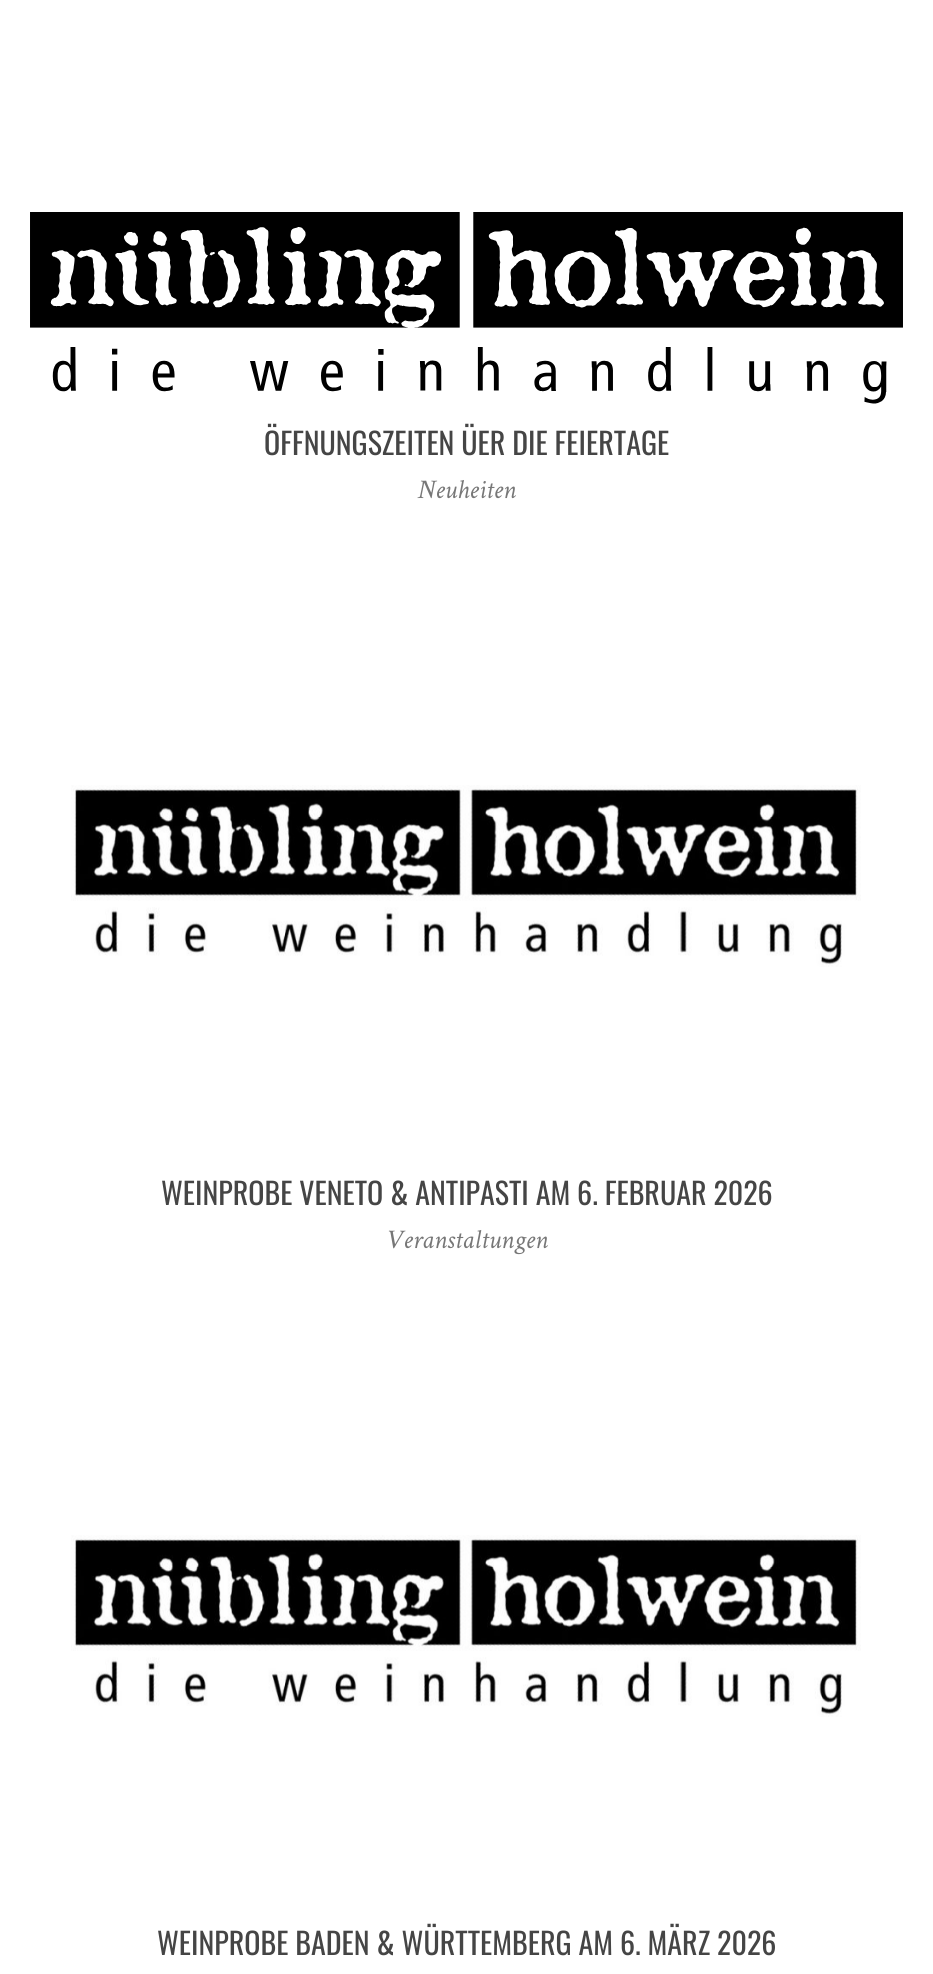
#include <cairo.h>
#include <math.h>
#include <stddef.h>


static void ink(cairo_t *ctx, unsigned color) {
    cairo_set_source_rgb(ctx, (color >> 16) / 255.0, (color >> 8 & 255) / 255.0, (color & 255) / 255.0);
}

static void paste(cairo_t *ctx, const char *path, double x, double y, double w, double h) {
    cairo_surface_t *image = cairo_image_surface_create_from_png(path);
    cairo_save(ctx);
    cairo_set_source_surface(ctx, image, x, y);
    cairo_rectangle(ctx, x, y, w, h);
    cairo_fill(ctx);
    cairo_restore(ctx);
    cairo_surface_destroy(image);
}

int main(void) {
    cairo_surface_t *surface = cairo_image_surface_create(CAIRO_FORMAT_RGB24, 933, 1974);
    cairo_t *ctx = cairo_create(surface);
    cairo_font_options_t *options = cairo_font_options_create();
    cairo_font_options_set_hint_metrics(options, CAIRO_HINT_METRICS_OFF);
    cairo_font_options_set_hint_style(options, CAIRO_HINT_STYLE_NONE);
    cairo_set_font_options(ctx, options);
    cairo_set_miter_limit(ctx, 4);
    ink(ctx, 0xFFFFFF);
    cairo_paint(ctx);
    paste(ctx, "media/1.png", 30, 212, 873, 192);
    cairo_select_font_face(ctx, "Oswald", CAIRO_FONT_SLANT_NORMAL, CAIRO_FONT_WEIGHT_NORMAL);
    cairo_set_font_size(ctx, 30);
    ink(ctx, 0x454545);
    cairo_move_to(ctx, 264, 455);
    cairo_show_text(ctx, "ÖFFNUNGSZEITEN ÜER DIE FEIERTAGE");
    cairo_select_font_face(ctx, "Crimson Text", CAIRO_FONT_SLANT_ITALIC, CAIRO_FONT_WEIGHT_NORMAL);
    cairo_set_font_size(ctx, 27);
    ink(ctx, 0x777777);
    cairo_move_to(ctx, 417, 498);
    cairo_show_text(ctx, "Neuheiten");
    paste(ctx, "media/2.png", 71, 785, 790, 182);
    cairo_select_font_face(ctx, "Oswald", CAIRO_FONT_SLANT_NORMAL, CAIRO_FONT_WEIGHT_NORMAL);
    cairo_set_font_size(ctx, 30);
    ink(ctx, 0x454545);
    cairo_move_to(ctx, 161, 1205);
    cairo_show_text(ctx, "WEINPROBE VENETO & ANTIPASTI AM 6. FEBRUAR 2026");
    cairo_select_font_face(ctx, "Crimson Text", CAIRO_FONT_SLANT_ITALIC, CAIRO_FONT_WEIGHT_NORMAL);
    cairo_set_font_size(ctx, 27);
    ink(ctx, 0x777777);
    cairo_move_to(ctx, 386, 1248);
    cairo_show_text(ctx, "Veranstaltungen");
    paste(ctx, "media/2.png", 71, 1535, 790, 182);
    cairo_select_font_face(ctx, "Oswald", CAIRO_FONT_SLANT_NORMAL, CAIRO_FONT_WEIGHT_NORMAL);
    cairo_set_font_size(ctx, 30);
    ink(ctx, 0x454545);
    cairo_move_to(ctx, 157, 1955);
    cairo_show_text(ctx, "WEINPROBE BADEN & WÜRTTEMBERG AM 6. MÄRZ 2026");
    cairo_surface_write_to_png(surface, "image.png");
    cairo_font_options_destroy(options);
    cairo_destroy(ctx);
    cairo_surface_destroy(surface);
    return 0;
}
